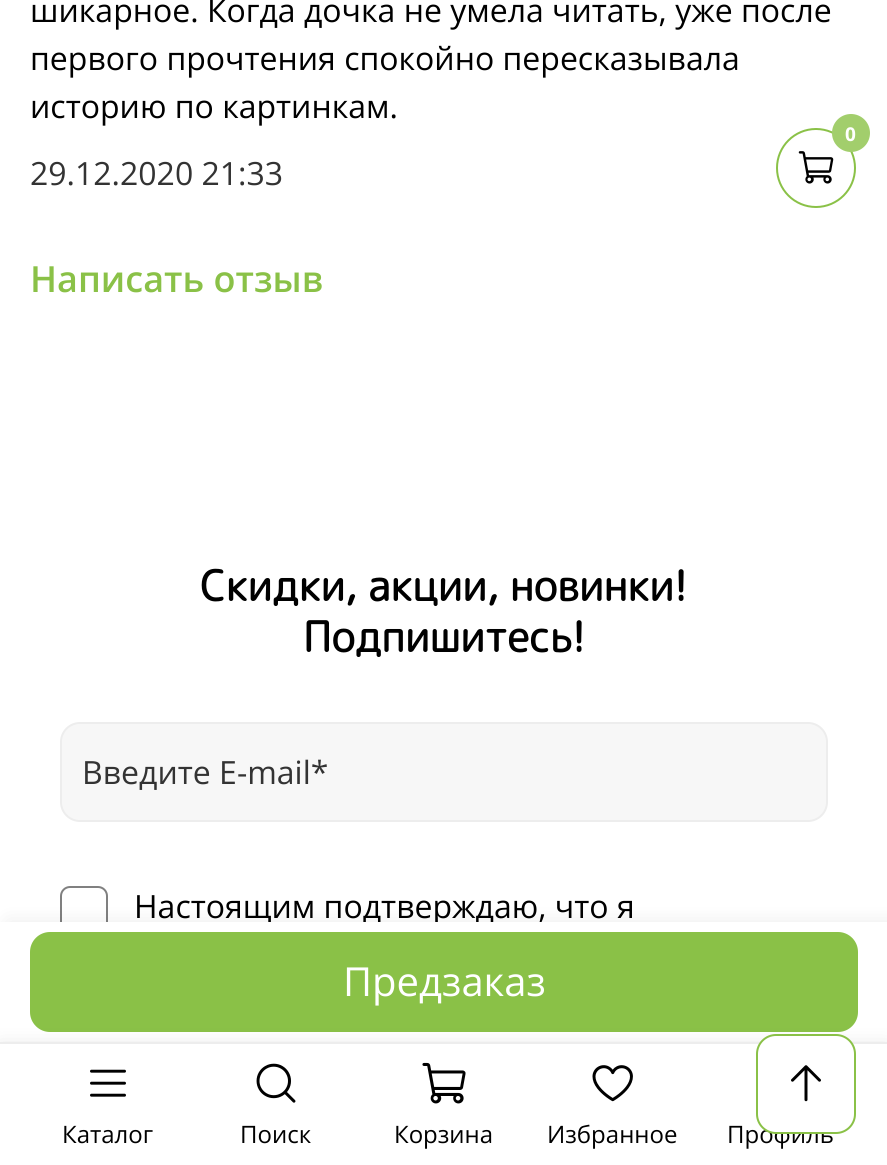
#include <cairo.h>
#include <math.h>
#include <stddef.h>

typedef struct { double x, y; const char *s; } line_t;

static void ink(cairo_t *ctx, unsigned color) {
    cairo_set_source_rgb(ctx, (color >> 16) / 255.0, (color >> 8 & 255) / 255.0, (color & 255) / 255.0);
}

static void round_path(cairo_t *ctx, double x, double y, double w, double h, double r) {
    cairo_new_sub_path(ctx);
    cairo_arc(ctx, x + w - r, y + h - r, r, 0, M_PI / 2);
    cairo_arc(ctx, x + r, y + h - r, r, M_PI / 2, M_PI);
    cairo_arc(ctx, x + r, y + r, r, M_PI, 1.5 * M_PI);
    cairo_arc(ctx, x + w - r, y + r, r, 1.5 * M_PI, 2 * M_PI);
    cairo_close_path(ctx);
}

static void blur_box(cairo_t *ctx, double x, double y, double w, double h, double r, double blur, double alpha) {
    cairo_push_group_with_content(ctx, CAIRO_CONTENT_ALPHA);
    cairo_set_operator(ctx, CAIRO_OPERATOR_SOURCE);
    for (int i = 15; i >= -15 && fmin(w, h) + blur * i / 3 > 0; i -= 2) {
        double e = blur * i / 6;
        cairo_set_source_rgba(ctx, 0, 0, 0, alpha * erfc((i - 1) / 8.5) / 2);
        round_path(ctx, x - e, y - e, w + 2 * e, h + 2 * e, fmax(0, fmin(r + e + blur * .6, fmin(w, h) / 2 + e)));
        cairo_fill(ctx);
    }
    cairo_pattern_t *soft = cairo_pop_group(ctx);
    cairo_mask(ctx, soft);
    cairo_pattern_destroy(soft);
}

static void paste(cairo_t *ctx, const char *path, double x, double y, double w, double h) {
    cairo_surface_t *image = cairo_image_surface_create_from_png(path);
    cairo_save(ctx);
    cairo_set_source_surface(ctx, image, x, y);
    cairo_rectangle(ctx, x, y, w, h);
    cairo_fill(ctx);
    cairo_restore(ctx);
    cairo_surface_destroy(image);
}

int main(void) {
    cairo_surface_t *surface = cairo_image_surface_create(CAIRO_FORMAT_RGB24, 887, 1165);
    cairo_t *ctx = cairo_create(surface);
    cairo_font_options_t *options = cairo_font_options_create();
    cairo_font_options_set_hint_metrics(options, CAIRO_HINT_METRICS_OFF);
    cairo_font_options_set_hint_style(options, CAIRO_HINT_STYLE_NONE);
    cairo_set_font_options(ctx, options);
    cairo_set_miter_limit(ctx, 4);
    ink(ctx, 0xFFFFFF);
    cairo_paint(ctx);
    cairo_select_font_face(ctx, "Open Sans", CAIRO_FONT_SLANT_NORMAL, CAIRO_FONT_WEIGHT_NORMAL);
    cairo_set_font_size(ctx, 32);
    ink(ctx, 0x000000);
    {
        static const line_t items[] = {
            {30, 22, "шикарное. Когда дочка не умела читать, уже после"},
            {30, 70, "первого прочтения спокойно пересказывала"},
            {30, 118, "историю по картинкам."},
        };
        for (size_t i = 0; i < sizeof items / sizeof *items; i++) {
            cairo_move_to(ctx, items[i].x, items[i].y);
            cairo_show_text(ctx, items[i].s);
        }
    }
    ink(ctx, 0x333333);
    cairo_move_to(ctx, 30, 185);
    cairo_show_text(ctx, "29.12.2020 21:33");
    cairo_select_font_face(ctx, "Open Sans SemiBold", CAIRO_FONT_SLANT_NORMAL, CAIRO_FONT_WEIGHT_NORMAL);
    cairo_set_font_size(ctx, 36);
    ink(ctx, 0x8AC147);
    cairo_move_to(ctx, 30, 292);
    cairo_show_text(ctx, "Написать отзыв");
    round_path(ctx, 61, 887, 46, 46, 9);
    ink(ctx, 0x808080);
    cairo_stroke(ctx);
    ink(ctx, 0x000000);
    blur_box(ctx, 8, 922, 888, 120, 0, 10, 0.08);
    cairo_select_font_face(ctx, "Open Sans", CAIRO_FONT_SLANT_NORMAL, CAIRO_FONT_WEIGHT_NORMAL);
    cairo_set_font_size(ctx, 32);
    ink(ctx, 0x000000);
    cairo_move_to(ctx, 134, 918);
    cairo_show_text(ctx, "Настоящим подтверждаю, что я");
    ink(ctx, 0xFFFFFF);
    cairo_rectangle(ctx, 0, 922, 887, 120);
    cairo_fill(ctx);
    ink(ctx, 0x8AC147);
    round_path(ctx, 30, 932, 828, 100, 20);
    cairo_fill(ctx);
    cairo_set_font_size(ctx, 40);
    ink(ctx, 0xFFFFFF);
    cairo_move_to(ctx, 343, 996);
    cairo_show_text(ctx, "Предзаказ");
    cairo_select_font_face(ctx, "Rounded Mplus 1c", CAIRO_FONT_SLANT_NORMAL, CAIRO_FONT_WEIGHT_BOLD);
    cairo_set_font_size(ctx, 42);
    ink(ctx, 0x000000);
    cairo_move_to(ctx, 200, 601);
    cairo_show_text(ctx, "Скидки, акции, новинки!");
    cairo_move_to(ctx, 303, 652);
    cairo_show_text(ctx, "Подпишитесь!");
    ink(ctx, 0xF7F7F7);
    round_path(ctx, 61, 723, 766, 98, 19);
    cairo_fill_preserve(ctx);
    ink(ctx, 0xEDEDED);
    cairo_stroke(ctx);
    cairo_select_font_face(ctx, "Open Sans", CAIRO_FONT_SLANT_NORMAL, CAIRO_FONT_WEIGHT_NORMAL);
    cairo_set_font_size(ctx, 32);
    ink(ctx, 0x333333);
    cairo_move_to(ctx, 82, 784);
    cairo_show_text(ctx, "Введите E-mail*");
    cairo_new_path(ctx);
    cairo_arc(ctx, 816, 168, 39, 0, 2 * M_PI);
    ink(ctx, 0x8AC147);
    cairo_stroke(ctx);
    paste(ctx, "media/1.png", 798, 151, 36, 33);
    ink(ctx, 0xA2CE6C);
    cairo_arc(ctx, 851, 133, 19, 0, 2 * M_PI);
    cairo_fill(ctx);
    cairo_select_font_face(ctx, "Open Sans", CAIRO_FONT_SLANT_NORMAL, CAIRO_FONT_WEIGHT_BOLD);
    cairo_set_font_size(ctx, 19);
    ink(ctx, 0xFFFFFF);
    cairo_move_to(ctx, 845, 141);
    cairo_show_text(ctx, "0");
    ink(ctx, 0x000000);
    blur_box(ctx, 0, 1046, 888, 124, 0, 10, 0.12);
    ink(ctx, 0xFFFFFF);
    cairo_rectangle(ctx, 0, 1044, 887, 121);
    cairo_fill(ctx);
    ink(ctx, 0xEDEDED);
    cairo_rectangle(ctx, 0, 1042, 887, 2);
    cairo_fill(ctx);
    cairo_select_font_face(ctx, "Open Sans", CAIRO_FONT_SLANT_NORMAL, CAIRO_FONT_WEIGHT_NORMAL);
    cairo_set_font_size(ctx, 24);
    ink(ctx, 0x000000);
    cairo_move_to(ctx, 727, 1143);
    cairo_show_text(ctx, "Профиль");
    ink(ctx, 0xFFFFFF);
    round_path(ctx, 757, 1035, 98, 98, 19);
    cairo_fill_preserve(ctx);
    ink(ctx, 0x8AC147);
    cairo_stroke(ctx);
    paste(ctx, "media/2.png", 791, 1065, 30, 37);
    paste(ctx, "media/3.png", 90, 1069, 36, 28);
    ink(ctx, 0x000000);
    cairo_move_to(ctx, 62, 1143);
    cairo_show_text(ctx, "Каталог");
    paste(ctx, "media/4.png", 256, 1063, 40, 40);
    cairo_move_to(ctx, 240, 1143);
    cairo_show_text(ctx, "Поиск");
    paste(ctx, "media/5.png", 422, 1062, 44, 42);
    cairo_move_to(ctx, 394, 1143);
    cairo_show_text(ctx, "Корзина");
    paste(ctx, "media/6.png", 592, 1065, 41, 37);
    cairo_move_to(ctx, 547, 1143);
    cairo_show_text(ctx, "Избранное");
    cairo_surface_write_to_png(surface, "image.png");
    cairo_font_options_destroy(options);
    cairo_destroy(ctx);
    cairo_surface_destroy(surface);
    return 0;
}
